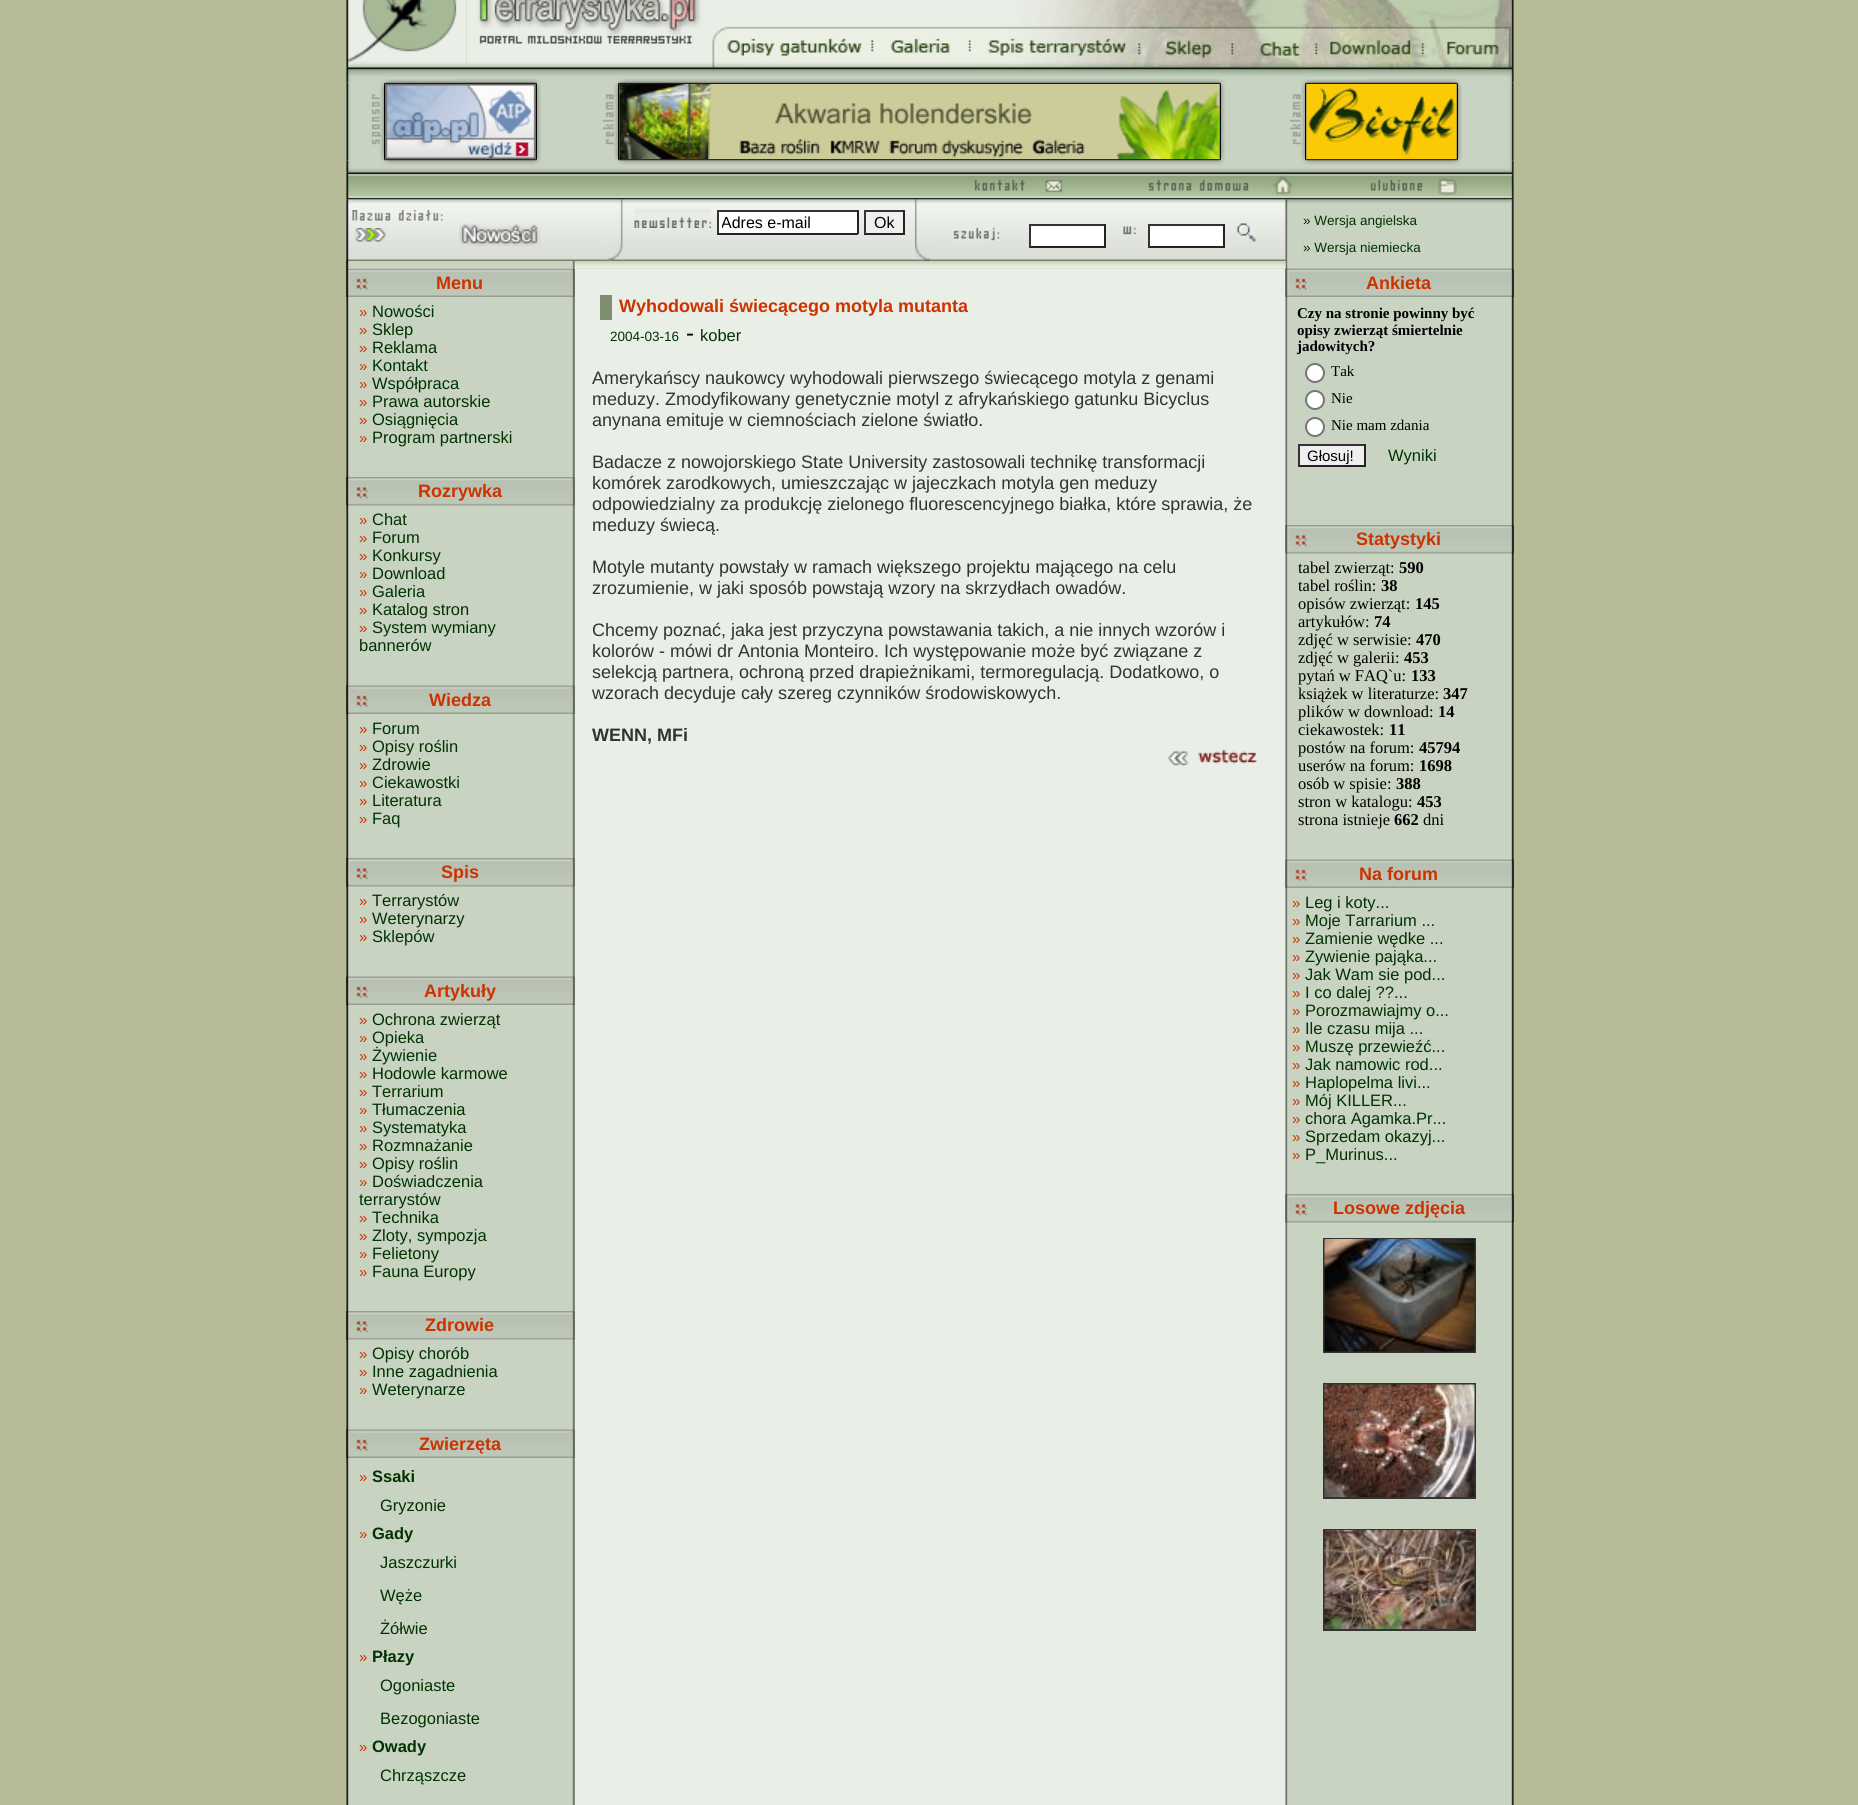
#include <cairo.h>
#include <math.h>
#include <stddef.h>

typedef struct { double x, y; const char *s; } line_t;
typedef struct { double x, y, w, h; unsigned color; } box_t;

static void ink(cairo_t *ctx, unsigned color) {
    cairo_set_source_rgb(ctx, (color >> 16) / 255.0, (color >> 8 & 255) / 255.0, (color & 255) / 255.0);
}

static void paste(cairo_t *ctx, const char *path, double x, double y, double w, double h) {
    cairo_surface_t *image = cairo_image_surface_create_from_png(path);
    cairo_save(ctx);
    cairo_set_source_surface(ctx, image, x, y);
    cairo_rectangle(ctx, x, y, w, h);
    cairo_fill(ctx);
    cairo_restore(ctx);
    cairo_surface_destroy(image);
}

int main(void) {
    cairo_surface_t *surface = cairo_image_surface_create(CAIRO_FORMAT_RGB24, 1858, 1805);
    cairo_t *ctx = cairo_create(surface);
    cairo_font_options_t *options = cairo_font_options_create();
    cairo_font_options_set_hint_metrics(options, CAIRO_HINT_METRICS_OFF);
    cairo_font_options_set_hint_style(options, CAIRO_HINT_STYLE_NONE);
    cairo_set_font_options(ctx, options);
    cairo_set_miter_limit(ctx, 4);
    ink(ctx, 0xB6BC97);
    cairo_paint(ctx);
    paste(ctx, "media/1.png", 346, 0, 121, 68);
    paste(ctx, "media/2.png", 466, 0, 278, 68);
    paste(ctx, "media/3.png", 744, 0, 770, 68);
    ink(ctx, 0xC9D3C2);
    cairo_rectangle(ctx, 346, 82, 1168, 79);
    cairo_fill(ctx);
    paste(ctx, "media/7.png", 384, 82, 153, 79);
    paste(ctx, "media/11.png", 618, 82, 603, 79);
    paste(ctx, "media/15.png", 1305, 82, 153, 79);
    paste(ctx, "media/4.png", 346, 67, 1168, 16);
    paste(ctx, "media/5.png", 346, 82, 5, 79);
    paste(ctx, "media/6.png", 371, 82, 13, 79);
    paste(ctx, "media/8.png", 385, 84, 151, 75);
    paste(ctx, "media/9.png", 537, 83, 4, 78);
    paste(ctx, "media/10.png", 603, 82, 15, 79);
    paste(ctx, "media/12.png", 619, 84, 601, 75);
    paste(ctx, "media/13.png", 1221, 83, 4, 78);
    paste(ctx, "media/14.png", 1290, 82, 15, 79);
    paste(ctx, "media/16.png", 1306, 84, 151, 75);
    paste(ctx, "media/17.png", 1458, 82, 4, 79);
    paste(ctx, "media/18.png", 1509, 82, 5, 79);
    paste(ctx, "media/19.png", 346, 160, 1168, 13);
    paste(ctx, "media/20.png", 346, 172, 1168, 28);
    paste(ctx, "media/21.png", 346, 199, 1168, 5);
    paste(ctx, "media/22.png", 346, 204, 940, 65);
    paste(ctx, "media/23.png", 346, 204, 7, 57);
    paste(ctx, "media/25.png", 352, 204, 256, 57);
    paste(ctx, "media/24.png", 346, 204, 7, 57);
    paste(ctx, "media/26.png", 352, 210, 91, 11);
    paste(ctx, "media/27.png", 355, 228, 31, 14);
    paste(ctx, "media/28.png", 458, 223, 83, 24);
    paste(ctx, "media/29.png", 607, 204, 16, 57);
    paste(ctx, "media/31.png", 622, 204, 293, 57);
    paste(ctx, "media/30.png", 607, 204, 16, 57);
    paste(ctx, "media/32.png", 634, 208, 77, 20);
    {
        static const box_t items[] = {
            {719, 212, 138, 21, 0xFFFFFF},
            {717, 210, 141, 2, 0x333333},
            {857, 210, 2, 24, 0x222222},
            {717, 233, 141, 2, 0x222222},
            {717, 210, 2, 24, 0x333333},
        };
        for (size_t i = 0; i < sizeof items / sizeof *items; i++) {
            ink(ctx, items[i].color);
            cairo_rectangle(ctx, items[i].x, items[i].y, items[i].w, items[i].h);
            cairo_fill(ctx);
        }
    }
    cairo_save(ctx);
    cairo_rectangle(ctx, 722, 213, 132, 18);
    cairo_clip(ctx);
    cairo_select_font_face(ctx, "Liberation Sans", CAIRO_FONT_SLANT_NORMAL, CAIRO_FONT_WEIGHT_NORMAL);
    cairo_set_font_size(ctx, 16);
    ink(ctx, 0x000000);
    cairo_move_to(ctx, 721, 228);
    cairo_show_text(ctx, "Adres e-mail");
    cairo_restore(ctx);
    {
        static const box_t items[] = {
            {866, 212, 37, 21, 0xEFEFEF},
            {864, 210, 41, 2, 0x333333},
            {903, 210, 2, 24, 0x222222},
            {864, 233, 41, 2, 0x222222},
            {864, 210, 2, 24, 0x333333},
        };
        for (size_t i = 0; i < sizeof items / sizeof *items; i++) {
            ink(ctx, items[i].color);
            cairo_rectangle(ctx, items[i].x, items[i].y, items[i].w, items[i].h);
            cairo_fill(ctx);
        }
    }
    cairo_select_font_face(ctx, "Liberation Sans", CAIRO_FONT_SLANT_NORMAL, CAIRO_FONT_WEIGHT_NORMAL);
    cairo_set_font_size(ctx, 16);
    ink(ctx, 0x000000);
    cairo_move_to(ctx, 874, 228);
    cairo_show_text(ctx, "Ok");
    paste(ctx, "media/33.png", 915, 204, 15, 57);
    paste(ctx, "media/34.png", 930, 204, 356, 57);
    paste(ctx, "media/35.png", 953, 227, 47, 14);
    {
        static const box_t items[] = {
            {1031, 226, 73, 20, 0xFFFFFF},
            {1029, 224, 77, 2, 0x333333},
            {1104, 224, 2, 24, 0x222222},
            {1029, 246, 77, 2, 0x222222},
            {1029, 224, 2, 24, 0x333333},
        };
        for (size_t i = 0; i < sizeof items / sizeof *items; i++) {
            ink(ctx, items[i].color);
            cairo_rectangle(ctx, items[i].x, items[i].y, items[i].w, items[i].h);
            cairo_fill(ctx);
        }
    }
    paste(ctx, "media/36.png", 1123, 226, 13, 9);
    {
        static const box_t items[] = {
            {1150, 226, 73, 20, 0xFFFFFF},
            {1148, 224, 76, 2, 0x333333},
            {1223, 224, 2, 24, 0x222222},
            {1148, 246, 76, 2, 0x222222},
            {1148, 224, 2, 24, 0x333333},
        };
        for (size_t i = 0; i < sizeof items / sizeof *items; i++) {
            ink(ctx, items[i].color);
            cairo_rectangle(ctx, items[i].x, items[i].y, items[i].w, items[i].h);
            cairo_fill(ctx);
        }
    }
    paste(ctx, "media/37.png", 1237, 223, 19, 19);
    paste(ctx, "media/39.png", 1285, 204, 229, 65);
    paste(ctx, "media/40.png", 346, 268, 229, 1537);
    paste(ctx, "media/41.png", 346, 268, 229, 29);
    ink(ctx, 0xE9EEE6);
    cairo_rectangle(ctx, 575, 269, 711, 1536);
    cairo_fill(ctx);
    paste(ctx, "media/45.png", 1285, 268, 229, 1537);
    paste(ctx, "media/46.png", 1285, 268, 229, 29);
    paste(ctx, "media/38.png", 346, 261, 940, 8);
    cairo_set_font_size(ctx, 13.5);
    ink(ctx, 0x003300);
    cairo_move_to(ctx, 1303, 225);
    cairo_show_text(ctx, "» Wersja angielska");
    cairo_move_to(ctx, 1303, 252);
    cairo_show_text(ctx, "» Wersja niemiecka");
    cairo_select_font_face(ctx, "Liberation Sans", CAIRO_FONT_SLANT_NORMAL, CAIRO_FONT_WEIGHT_BOLD);
    cairo_set_font_size(ctx, 18);
    ink(ctx, 0xCC3300);
    cairo_move_to(ctx, 436, 289);
    cairo_show_text(ctx, "Menu");
    cairo_select_font_face(ctx, "Liberation Sans", CAIRO_FONT_SLANT_NORMAL, CAIRO_FONT_WEIGHT_NORMAL);
    cairo_set_font_size(ctx, 15);
    cairo_move_to(ctx, 359, 317);
    cairo_show_text(ctx, "»");
    cairo_set_font_size(ctx, 16.5);
    ink(ctx, 0x003300);
    cairo_move_to(ctx, 372, 317);
    cairo_show_text(ctx, "Nowości");
    cairo_set_font_size(ctx, 15);
    ink(ctx, 0xCC3300);
    cairo_move_to(ctx, 359, 335);
    cairo_show_text(ctx, "»");
    cairo_set_font_size(ctx, 16.5);
    ink(ctx, 0x003300);
    cairo_move_to(ctx, 372, 335);
    cairo_show_text(ctx, "Sklep");
    cairo_set_font_size(ctx, 15);
    ink(ctx, 0xCC3300);
    cairo_move_to(ctx, 359, 353);
    cairo_show_text(ctx, "»");
    cairo_set_font_size(ctx, 16.5);
    ink(ctx, 0x003300);
    cairo_move_to(ctx, 372, 353);
    cairo_show_text(ctx, "Reklama");
    cairo_set_font_size(ctx, 15);
    ink(ctx, 0xCC3300);
    cairo_move_to(ctx, 359, 371);
    cairo_show_text(ctx, "»");
    cairo_set_font_size(ctx, 16.5);
    ink(ctx, 0x003300);
    cairo_move_to(ctx, 372, 371);
    cairo_show_text(ctx, "Kontakt");
    cairo_set_font_size(ctx, 15);
    ink(ctx, 0xCC3300);
    cairo_move_to(ctx, 359, 389);
    cairo_show_text(ctx, "»");
    cairo_set_font_size(ctx, 16.5);
    ink(ctx, 0x003300);
    cairo_move_to(ctx, 372, 389);
    cairo_show_text(ctx, "Współpraca");
    cairo_set_font_size(ctx, 15);
    ink(ctx, 0xCC3300);
    cairo_move_to(ctx, 359, 407);
    cairo_show_text(ctx, "»");
    cairo_set_font_size(ctx, 16.5);
    ink(ctx, 0x003300);
    cairo_move_to(ctx, 372, 407);
    cairo_show_text(ctx, "Prawa autorskie");
    cairo_set_font_size(ctx, 15);
    ink(ctx, 0xCC3300);
    cairo_move_to(ctx, 359, 425);
    cairo_show_text(ctx, "»");
    cairo_set_font_size(ctx, 16.5);
    ink(ctx, 0x003300);
    cairo_move_to(ctx, 372, 425);
    cairo_show_text(ctx, "Osiągnięcia");
    cairo_set_font_size(ctx, 15);
    ink(ctx, 0xCC3300);
    cairo_move_to(ctx, 359, 443);
    cairo_show_text(ctx, "»");
    cairo_set_font_size(ctx, 16.5);
    ink(ctx, 0x003300);
    cairo_move_to(ctx, 372, 443);
    cairo_show_text(ctx, "Program partnerski");
    paste(ctx, "media/42.png", 346, 477, 229, 29);
    cairo_select_font_face(ctx, "Liberation Sans", CAIRO_FONT_SLANT_NORMAL, CAIRO_FONT_WEIGHT_BOLD);
    cairo_set_font_size(ctx, 18);
    ink(ctx, 0xCC3300);
    cairo_move_to(ctx, 418, 497);
    cairo_show_text(ctx, "Rozrywka");
    cairo_select_font_face(ctx, "Liberation Sans", CAIRO_FONT_SLANT_NORMAL, CAIRO_FONT_WEIGHT_NORMAL);
    cairo_set_font_size(ctx, 15);
    cairo_move_to(ctx, 359, 525);
    cairo_show_text(ctx, "»");
    cairo_set_font_size(ctx, 16.5);
    ink(ctx, 0x003300);
    cairo_move_to(ctx, 372, 525);
    cairo_show_text(ctx, "Chat");
    cairo_set_font_size(ctx, 15);
    ink(ctx, 0xCC3300);
    cairo_move_to(ctx, 359, 543);
    cairo_show_text(ctx, "»");
    cairo_set_font_size(ctx, 16.5);
    ink(ctx, 0x003300);
    cairo_move_to(ctx, 372, 543);
    cairo_show_text(ctx, "Forum");
    cairo_set_font_size(ctx, 15);
    ink(ctx, 0xCC3300);
    cairo_move_to(ctx, 359, 561);
    cairo_show_text(ctx, "»");
    cairo_set_font_size(ctx, 16.5);
    ink(ctx, 0x003300);
    cairo_move_to(ctx, 372, 561);
    cairo_show_text(ctx, "Konkursy");
    cairo_set_font_size(ctx, 15);
    ink(ctx, 0xCC3300);
    cairo_move_to(ctx, 359, 579);
    cairo_show_text(ctx, "»");
    cairo_set_font_size(ctx, 16.5);
    ink(ctx, 0x003300);
    cairo_move_to(ctx, 372, 579);
    cairo_show_text(ctx, "Download");
    cairo_set_font_size(ctx, 15);
    ink(ctx, 0xCC3300);
    cairo_move_to(ctx, 359, 597);
    cairo_show_text(ctx, "»");
    cairo_set_font_size(ctx, 16.5);
    ink(ctx, 0x003300);
    cairo_move_to(ctx, 372, 597);
    cairo_show_text(ctx, "Galeria");
    cairo_set_font_size(ctx, 15);
    ink(ctx, 0xCC3300);
    cairo_move_to(ctx, 359, 615);
    cairo_show_text(ctx, "»");
    cairo_set_font_size(ctx, 16.5);
    ink(ctx, 0x003300);
    cairo_move_to(ctx, 372, 615);
    cairo_show_text(ctx, "Katalog stron");
    cairo_set_font_size(ctx, 15);
    ink(ctx, 0xCC3300);
    cairo_move_to(ctx, 359, 633);
    cairo_show_text(ctx, "»");
    cairo_set_font_size(ctx, 16.5);
    ink(ctx, 0x003300);
    cairo_move_to(ctx, 372, 633);
    cairo_show_text(ctx, "System wymiany");
    cairo_move_to(ctx, 359, 651);
    cairo_show_text(ctx, "bannerów");
    paste(ctx, "media/43.png", 346, 685, 229, 29);
    cairo_select_font_face(ctx, "Liberation Sans", CAIRO_FONT_SLANT_NORMAL, CAIRO_FONT_WEIGHT_BOLD);
    cairo_set_font_size(ctx, 18);
    ink(ctx, 0xCC3300);
    cairo_move_to(ctx, 429, 706);
    cairo_show_text(ctx, "Wiedza");
    cairo_select_font_face(ctx, "Liberation Sans", CAIRO_FONT_SLANT_NORMAL, CAIRO_FONT_WEIGHT_NORMAL);
    cairo_set_font_size(ctx, 15);
    cairo_move_to(ctx, 359, 734);
    cairo_show_text(ctx, "»");
    cairo_set_font_size(ctx, 16.5);
    ink(ctx, 0x003300);
    cairo_move_to(ctx, 372, 734);
    cairo_show_text(ctx, "Forum");
    cairo_set_font_size(ctx, 15);
    ink(ctx, 0xCC3300);
    cairo_move_to(ctx, 359, 752);
    cairo_show_text(ctx, "»");
    cairo_set_font_size(ctx, 16.5);
    ink(ctx, 0x003300);
    cairo_move_to(ctx, 372, 752);
    cairo_show_text(ctx, "Opisy roślin");
    cairo_set_font_size(ctx, 15);
    ink(ctx, 0xCC3300);
    cairo_move_to(ctx, 359, 770);
    cairo_show_text(ctx, "»");
    cairo_set_font_size(ctx, 16.5);
    ink(ctx, 0x003300);
    cairo_move_to(ctx, 372, 770);
    cairo_show_text(ctx, "Zdrowie");
    cairo_set_font_size(ctx, 15);
    ink(ctx, 0xCC3300);
    cairo_move_to(ctx, 359, 788);
    cairo_show_text(ctx, "»");
    cairo_set_font_size(ctx, 16.5);
    ink(ctx, 0x003300);
    cairo_move_to(ctx, 372, 788);
    cairo_show_text(ctx, "Ciekawostki");
    cairo_set_font_size(ctx, 15);
    ink(ctx, 0xCC3300);
    cairo_move_to(ctx, 359, 806);
    cairo_show_text(ctx, "»");
    cairo_set_font_size(ctx, 16.5);
    ink(ctx, 0x003300);
    cairo_move_to(ctx, 372, 806);
    cairo_show_text(ctx, "Literatura");
    cairo_set_font_size(ctx, 15);
    ink(ctx, 0xCC3300);
    cairo_move_to(ctx, 359, 824);
    cairo_show_text(ctx, "»");
    cairo_set_font_size(ctx, 16.5);
    ink(ctx, 0x003300);
    cairo_move_to(ctx, 372, 824);
    cairo_show_text(ctx, "Faq");
    paste(ctx, "media/42.png", 346, 858, 229, 29);
    cairo_select_font_face(ctx, "Liberation Sans", CAIRO_FONT_SLANT_NORMAL, CAIRO_FONT_WEIGHT_BOLD);
    cairo_set_font_size(ctx, 18);
    ink(ctx, 0xCC3300);
    cairo_move_to(ctx, 441, 878);
    cairo_show_text(ctx, "Spis");
    cairo_select_font_face(ctx, "Liberation Sans", CAIRO_FONT_SLANT_NORMAL, CAIRO_FONT_WEIGHT_NORMAL);
    cairo_set_font_size(ctx, 15);
    cairo_move_to(ctx, 359, 906);
    cairo_show_text(ctx, "»");
    cairo_set_font_size(ctx, 16.5);
    ink(ctx, 0x003300);
    cairo_move_to(ctx, 372, 906);
    cairo_show_text(ctx, "Terrarystów");
    cairo_set_font_size(ctx, 15);
    ink(ctx, 0xCC3300);
    cairo_move_to(ctx, 359, 924);
    cairo_show_text(ctx, "»");
    cairo_set_font_size(ctx, 16.5);
    ink(ctx, 0x003300);
    cairo_move_to(ctx, 372, 924);
    cairo_show_text(ctx, "Weterynarzy");
    cairo_set_font_size(ctx, 15);
    ink(ctx, 0xCC3300);
    cairo_move_to(ctx, 359, 942);
    cairo_show_text(ctx, "»");
    cairo_set_font_size(ctx, 16.5);
    ink(ctx, 0x003300);
    cairo_move_to(ctx, 372, 942);
    cairo_show_text(ctx, "Sklepów");
    paste(ctx, "media/43.png", 346, 976, 229, 29);
    cairo_select_font_face(ctx, "Liberation Sans", CAIRO_FONT_SLANT_NORMAL, CAIRO_FONT_WEIGHT_BOLD);
    cairo_set_font_size(ctx, 18);
    ink(ctx, 0xCC3300);
    cairo_move_to(ctx, 424, 997);
    cairo_show_text(ctx, "Artykuły");
    cairo_select_font_face(ctx, "Liberation Sans", CAIRO_FONT_SLANT_NORMAL, CAIRO_FONT_WEIGHT_NORMAL);
    cairo_set_font_size(ctx, 15);
    cairo_move_to(ctx, 359, 1025);
    cairo_show_text(ctx, "»");
    cairo_set_font_size(ctx, 16.5);
    ink(ctx, 0x003300);
    cairo_move_to(ctx, 372, 1025);
    cairo_show_text(ctx, "Ochrona zwierząt");
    cairo_set_font_size(ctx, 15);
    ink(ctx, 0xCC3300);
    cairo_move_to(ctx, 359, 1043);
    cairo_show_text(ctx, "»");
    cairo_set_font_size(ctx, 16.5);
    ink(ctx, 0x003300);
    cairo_move_to(ctx, 372, 1043);
    cairo_show_text(ctx, "Opieka");
    cairo_set_font_size(ctx, 15);
    ink(ctx, 0xCC3300);
    cairo_move_to(ctx, 359, 1061);
    cairo_show_text(ctx, "»");
    cairo_set_font_size(ctx, 16.5);
    ink(ctx, 0x003300);
    cairo_move_to(ctx, 372, 1061);
    cairo_show_text(ctx, "Żywienie");
    cairo_set_font_size(ctx, 15);
    ink(ctx, 0xCC3300);
    cairo_move_to(ctx, 359, 1079);
    cairo_show_text(ctx, "»");
    cairo_set_font_size(ctx, 16.5);
    ink(ctx, 0x003300);
    cairo_move_to(ctx, 372, 1079);
    cairo_show_text(ctx, "Hodowle karmowe");
    cairo_set_font_size(ctx, 15);
    ink(ctx, 0xCC3300);
    cairo_move_to(ctx, 359, 1097);
    cairo_show_text(ctx, "»");
    cairo_set_font_size(ctx, 16.5);
    ink(ctx, 0x003300);
    cairo_move_to(ctx, 372, 1097);
    cairo_show_text(ctx, "Terrarium");
    cairo_set_font_size(ctx, 15);
    ink(ctx, 0xCC3300);
    cairo_move_to(ctx, 359, 1115);
    cairo_show_text(ctx, "»");
    cairo_set_font_size(ctx, 16.5);
    ink(ctx, 0x003300);
    cairo_move_to(ctx, 372, 1115);
    cairo_show_text(ctx, "Tłumaczenia");
    cairo_set_font_size(ctx, 15);
    ink(ctx, 0xCC3300);
    cairo_move_to(ctx, 359, 1133);
    cairo_show_text(ctx, "»");
    cairo_set_font_size(ctx, 16.5);
    ink(ctx, 0x003300);
    cairo_move_to(ctx, 372, 1133);
    cairo_show_text(ctx, "Systematyka");
    cairo_set_font_size(ctx, 15);
    ink(ctx, 0xCC3300);
    cairo_move_to(ctx, 359, 1151);
    cairo_show_text(ctx, "»");
    cairo_set_font_size(ctx, 16.5);
    ink(ctx, 0x003300);
    cairo_move_to(ctx, 372, 1151);
    cairo_show_text(ctx, "Rozmnażanie");
    cairo_set_font_size(ctx, 15);
    ink(ctx, 0xCC3300);
    cairo_move_to(ctx, 359, 1169);
    cairo_show_text(ctx, "»");
    cairo_set_font_size(ctx, 16.5);
    ink(ctx, 0x003300);
    cairo_move_to(ctx, 372, 1169);
    cairo_show_text(ctx, "Opisy roślin");
    cairo_set_font_size(ctx, 15);
    ink(ctx, 0xCC3300);
    cairo_move_to(ctx, 359, 1187);
    cairo_show_text(ctx, "»");
    cairo_set_font_size(ctx, 16.5);
    ink(ctx, 0x003300);
    cairo_move_to(ctx, 372, 1187);
    cairo_show_text(ctx, "Doświadczenia");
    cairo_move_to(ctx, 359, 1205);
    cairo_show_text(ctx, "terrarystów");
    cairo_set_font_size(ctx, 15);
    ink(ctx, 0xCC3300);
    cairo_move_to(ctx, 359, 1223);
    cairo_show_text(ctx, "»");
    cairo_set_font_size(ctx, 16.5);
    ink(ctx, 0x003300);
    cairo_move_to(ctx, 372, 1223);
    cairo_show_text(ctx, "Technika");
    cairo_set_font_size(ctx, 15);
    ink(ctx, 0xCC3300);
    cairo_move_to(ctx, 359, 1241);
    cairo_show_text(ctx, "»");
    cairo_set_font_size(ctx, 16.5);
    ink(ctx, 0x003300);
    cairo_move_to(ctx, 372, 1241);
    cairo_show_text(ctx, "Zloty, sympozja");
    cairo_set_font_size(ctx, 15);
    ink(ctx, 0xCC3300);
    cairo_move_to(ctx, 359, 1259);
    cairo_show_text(ctx, "»");
    cairo_set_font_size(ctx, 16.5);
    ink(ctx, 0x003300);
    cairo_move_to(ctx, 372, 1259);
    cairo_show_text(ctx, "Felietony");
    cairo_set_font_size(ctx, 15);
    ink(ctx, 0xCC3300);
    cairo_move_to(ctx, 359, 1277);
    cairo_show_text(ctx, "»");
    cairo_set_font_size(ctx, 16.5);
    ink(ctx, 0x003300);
    cairo_move_to(ctx, 372, 1277);
    cairo_show_text(ctx, "Fauna Europy");
    paste(ctx, "media/42.png", 346, 1311, 229, 29);
    cairo_select_font_face(ctx, "Liberation Sans", CAIRO_FONT_SLANT_NORMAL, CAIRO_FONT_WEIGHT_BOLD);
    cairo_set_font_size(ctx, 18);
    ink(ctx, 0xCC3300);
    cairo_move_to(ctx, 425, 1331);
    cairo_show_text(ctx, "Zdrowie");
    cairo_select_font_face(ctx, "Liberation Sans", CAIRO_FONT_SLANT_NORMAL, CAIRO_FONT_WEIGHT_NORMAL);
    cairo_set_font_size(ctx, 15);
    cairo_move_to(ctx, 359, 1359);
    cairo_show_text(ctx, "»");
    cairo_set_font_size(ctx, 16.5);
    ink(ctx, 0x003300);
    cairo_move_to(ctx, 372, 1359);
    cairo_show_text(ctx, "Opisy chorób");
    cairo_set_font_size(ctx, 15);
    ink(ctx, 0xCC3300);
    cairo_move_to(ctx, 359, 1377);
    cairo_show_text(ctx, "»");
    cairo_set_font_size(ctx, 16.5);
    ink(ctx, 0x003300);
    cairo_move_to(ctx, 372, 1377);
    cairo_show_text(ctx, "Inne zagadnienia");
    cairo_set_font_size(ctx, 15);
    ink(ctx, 0xCC3300);
    cairo_move_to(ctx, 359, 1395);
    cairo_show_text(ctx, "»");
    cairo_set_font_size(ctx, 16.5);
    ink(ctx, 0x003300);
    cairo_move_to(ctx, 372, 1395);
    cairo_show_text(ctx, "Weterynarze");
    paste(ctx, "media/43.png", 346, 1429, 229, 29);
    cairo_select_font_face(ctx, "Liberation Sans", CAIRO_FONT_SLANT_NORMAL, CAIRO_FONT_WEIGHT_BOLD);
    cairo_set_font_size(ctx, 18);
    ink(ctx, 0xCC3300);
    cairo_move_to(ctx, 419, 1450);
    cairo_show_text(ctx, "Zwierzęta");
    cairo_select_font_face(ctx, "Liberation Sans", CAIRO_FONT_SLANT_NORMAL, CAIRO_FONT_WEIGHT_NORMAL);
    cairo_set_font_size(ctx, 15);
    cairo_move_to(ctx, 359, 1482);
    cairo_show_text(ctx, "»");
    cairo_select_font_face(ctx, "Liberation Sans", CAIRO_FONT_SLANT_NORMAL, CAIRO_FONT_WEIGHT_BOLD);
    cairo_set_font_size(ctx, 16.5);
    ink(ctx, 0x003300);
    cairo_move_to(ctx, 372, 1482);
    cairo_show_text(ctx, "Ssaki");
    cairo_select_font_face(ctx, "Liberation Sans", CAIRO_FONT_SLANT_NORMAL, CAIRO_FONT_WEIGHT_NORMAL);
    cairo_move_to(ctx, 380, 1511);
    cairo_show_text(ctx, "Gryzonie");
    cairo_set_font_size(ctx, 15);
    ink(ctx, 0xCC3300);
    cairo_move_to(ctx, 359, 1539);
    cairo_show_text(ctx, "»");
    cairo_select_font_face(ctx, "Liberation Sans", CAIRO_FONT_SLANT_NORMAL, CAIRO_FONT_WEIGHT_BOLD);
    cairo_set_font_size(ctx, 16.5);
    ink(ctx, 0x003300);
    cairo_move_to(ctx, 372, 1539);
    cairo_show_text(ctx, "Gady");
    cairo_select_font_face(ctx, "Liberation Sans", CAIRO_FONT_SLANT_NORMAL, CAIRO_FONT_WEIGHT_NORMAL);
    {
        static const line_t items[] = {
            {380, 1568, "Jaszczurki"},
            {380, 1601, "Węże"},
            {380, 1634, "Żółwie"},
        };
        for (size_t i = 0; i < sizeof items / sizeof *items; i++) {
            cairo_move_to(ctx, items[i].x, items[i].y);
            cairo_show_text(ctx, items[i].s);
        }
    }
    cairo_set_font_size(ctx, 15);
    ink(ctx, 0xCC3300);
    cairo_move_to(ctx, 359, 1662);
    cairo_show_text(ctx, "»");
    cairo_select_font_face(ctx, "Liberation Sans", CAIRO_FONT_SLANT_NORMAL, CAIRO_FONT_WEIGHT_BOLD);
    cairo_set_font_size(ctx, 16.5);
    ink(ctx, 0x003300);
    cairo_move_to(ctx, 372, 1662);
    cairo_show_text(ctx, "Płazy");
    cairo_select_font_face(ctx, "Liberation Sans", CAIRO_FONT_SLANT_NORMAL, CAIRO_FONT_WEIGHT_NORMAL);
    cairo_move_to(ctx, 380, 1691);
    cairo_show_text(ctx, "Ogoniaste");
    cairo_move_to(ctx, 380, 1724);
    cairo_show_text(ctx, "Bezogoniaste");
    cairo_set_font_size(ctx, 15);
    ink(ctx, 0xCC3300);
    cairo_move_to(ctx, 359, 1752);
    cairo_show_text(ctx, "»");
    cairo_select_font_face(ctx, "Liberation Sans", CAIRO_FONT_SLANT_NORMAL, CAIRO_FONT_WEIGHT_BOLD);
    cairo_set_font_size(ctx, 16.5);
    ink(ctx, 0x003300);
    cairo_move_to(ctx, 372, 1752);
    cairo_show_text(ctx, "Owady");
    cairo_select_font_face(ctx, "Liberation Sans", CAIRO_FONT_SLANT_NORMAL, CAIRO_FONT_WEIGHT_NORMAL);
    cairo_move_to(ctx, 380, 1781);
    cairo_show_text(ctx, "Chrząszcze");
    ink(ctx, 0x7F8D70);
    cairo_rectangle(ctx, 600, 295, 12, 25);
    cairo_fill(ctx);
    cairo_select_font_face(ctx, "Liberation Sans", CAIRO_FONT_SLANT_NORMAL, CAIRO_FONT_WEIGHT_BOLD);
    cairo_set_font_size(ctx, 18);
    ink(ctx, 0xCC3300);
    cairo_move_to(ctx, 619, 312);
    cairo_show_text(ctx, "Wyhodowali świecącego motyla mutanta");
    cairo_select_font_face(ctx, "Liberation Sans", CAIRO_FONT_SLANT_NORMAL, CAIRO_FONT_WEIGHT_NORMAL);
    cairo_set_font_size(ctx, 13.5);
    ink(ctx, 0x003300);
    cairo_move_to(ctx, 610, 341);
    cairo_show_text(ctx, "2004-03-16");
    cairo_set_font_size(ctx, 24);
    ink(ctx, 0x000000);
    cairo_move_to(ctx, 686, 341);
    cairo_show_text(ctx, "-");
    cairo_set_font_size(ctx, 16.5);
    ink(ctx, 0x003300);
    cairo_move_to(ctx, 700, 341);
    cairo_show_text(ctx, "kober");
    cairo_set_font_size(ctx, 18);
    ink(ctx, 0x333333);
    {
        static const line_t items[] = {
            {592, 384, "Amerykańscy naukowcy wyhodowali pierwszego świecącego motyla z genami"},
            {592, 405, "meduzy. Zmodyfikowany genetycznie motyl z afrykańskiego gatunku Bicyclus"},
            {592, 426, "anynana emituje w ciemnościach zielone światło."},
            {592, 468, "Badacze z nowojorskiego State University zastosowali technikę transformacji"},
            {592, 489, "komórek zarodkowych, umieszczając w jajeczkach motyla gen meduzy"},
            {592, 510, "odpowiedzialny za produkcję zielonego fluorescencyjnego białka, które sprawia, że"},
            {592, 531, "meduzy świecą."},
            {592, 573, "Motyle mutanty powstały w ramach większego projektu mającego na celu"},
            {592, 594, "zrozumienie, w jaki sposób powstają wzory na skrzydłach owadów."},
            {592, 636, "Chcemy poznać, jaka jest przyczyna powstawania takich, a nie innych wzorów i"},
            {592, 657, "kolorów - mówi dr Antonia Monteiro. Ich występowanie może być związane z"},
            {592, 678, "selekcją partnera, ochroną przed drapieżnikami, termoregulacją. Dodatkowo, o"},
            {592, 699, "wzorach decyduje cały szereg czynników środowiskowych."},
        };
        for (size_t i = 0; i < sizeof items / sizeof *items; i++) {
            cairo_move_to(ctx, items[i].x, items[i].y);
            cairo_show_text(ctx, items[i].s);
        }
    }
    cairo_select_font_face(ctx, "Liberation Sans", CAIRO_FONT_SLANT_NORMAL, CAIRO_FONT_WEIGHT_BOLD);
    cairo_move_to(ctx, 592, 741);
    cairo_show_text(ctx, "WENN, MFi");
    paste(ctx, "media/44.png", 1168, 749, 90, 17);
    ink(ctx, 0xCC3300);
    cairo_move_to(ctx, 1366, 289);
    cairo_show_text(ctx, "Ankieta");
    cairo_select_font_face(ctx, "Liberation Serif", CAIRO_FONT_SLANT_NORMAL, CAIRO_FONT_WEIGHT_BOLD);
    cairo_set_font_size(ctx, 15);
    ink(ctx, 0x000000);
    {
        static const line_t items[] = {
            {1297, 318, "Czy na stronie powinny być"},
            {1297, 335, "opisy zwierząt śmiertelnie"},
            {1297, 351, "jadowitych?"},
        };
        for (size_t i = 0; i < sizeof items / sizeof *items; i++) {
            cairo_move_to(ctx, items[i].x, items[i].y);
            cairo_show_text(ctx, items[i].s);
        }
    }
    ink(ctx, 0xFFFFFF);
    cairo_new_path(ctx);
    cairo_arc(ctx, 1315, 373, 9, 0, 2 * M_PI);
    cairo_fill_preserve(ctx);
    ink(ctx, 0x767676);
    cairo_stroke(ctx);
    cairo_select_font_face(ctx, "Liberation Serif", CAIRO_FONT_SLANT_NORMAL, CAIRO_FONT_WEIGHT_NORMAL);
    ink(ctx, 0x000000);
    cairo_move_to(ctx, 1331, 376);
    cairo_show_text(ctx, "Tak");
    ink(ctx, 0xFFFFFF);
    cairo_new_path(ctx);
    cairo_arc(ctx, 1315, 400, 9, 0, 2 * M_PI);
    cairo_fill_preserve(ctx);
    ink(ctx, 0x767676);
    cairo_stroke(ctx);
    ink(ctx, 0x000000);
    cairo_move_to(ctx, 1331, 403);
    cairo_show_text(ctx, "Nie");
    ink(ctx, 0xFFFFFF);
    cairo_new_path(ctx);
    cairo_arc(ctx, 1315, 427, 9, 0, 2 * M_PI);
    cairo_fill_preserve(ctx);
    ink(ctx, 0x767676);
    cairo_stroke(ctx);
    ink(ctx, 0x000000);
    cairo_move_to(ctx, 1331, 430);
    cairo_show_text(ctx, "Nie mam zdania");
    {
        static const box_t items[] = {
            {1300, 446, 64, 19, 0xEFEFEF},
            {1298, 444, 67, 2, 0x333333},
            {1364, 444, 2, 23, 0x222222},
            {1298, 465, 67, 2, 0x222222},
            {1298, 444, 2, 23, 0x333333},
        };
        for (size_t i = 0; i < sizeof items / sizeof *items; i++) {
            ink(ctx, items[i].color);
            cairo_rectangle(ctx, items[i].x, items[i].y, items[i].w, items[i].h);
            cairo_fill(ctx);
        }
    }
    cairo_select_font_face(ctx, "Liberation Sans", CAIRO_FONT_SLANT_NORMAL, CAIRO_FONT_WEIGHT_NORMAL);
    ink(ctx, 0x000000);
    cairo_move_to(ctx, 1307, 461);
    cairo_show_text(ctx, "Głosuj!");
    cairo_set_font_size(ctx, 16.5);
    ink(ctx, 0x003300);
    cairo_move_to(ctx, 1388, 461);
    cairo_show_text(ctx, "Wyniki");
    paste(ctx, "media/47.png", 1285, 525, 229, 29);
    cairo_select_font_face(ctx, "Liberation Sans", CAIRO_FONT_SLANT_NORMAL, CAIRO_FONT_WEIGHT_BOLD);
    cairo_set_font_size(ctx, 18);
    ink(ctx, 0xCC3300);
    cairo_move_to(ctx, 1356, 545);
    cairo_show_text(ctx, "Statystyki");
    cairo_select_font_face(ctx, "Liberation Serif", CAIRO_FONT_SLANT_NORMAL, CAIRO_FONT_WEIGHT_NORMAL);
    cairo_set_font_size(ctx, 16.5);
    ink(ctx, 0x000000);
    cairo_move_to(ctx, 1298, 573);
    cairo_show_text(ctx, "tabel zwierząt:");
    cairo_select_font_face(ctx, "Liberation Serif", CAIRO_FONT_SLANT_NORMAL, CAIRO_FONT_WEIGHT_BOLD);
    cairo_move_to(ctx, 1399, 573);
    cairo_show_text(ctx, "590");
    cairo_select_font_face(ctx, "Liberation Serif", CAIRO_FONT_SLANT_NORMAL, CAIRO_FONT_WEIGHT_NORMAL);
    cairo_move_to(ctx, 1298, 591);
    cairo_show_text(ctx, "tabel roślin:");
    cairo_select_font_face(ctx, "Liberation Serif", CAIRO_FONT_SLANT_NORMAL, CAIRO_FONT_WEIGHT_BOLD);
    cairo_move_to(ctx, 1381, 591);
    cairo_show_text(ctx, "38");
    cairo_select_font_face(ctx, "Liberation Serif", CAIRO_FONT_SLANT_NORMAL, CAIRO_FONT_WEIGHT_NORMAL);
    cairo_move_to(ctx, 1298, 609);
    cairo_show_text(ctx, "opisów zwierząt:");
    cairo_select_font_face(ctx, "Liberation Serif", CAIRO_FONT_SLANT_NORMAL, CAIRO_FONT_WEIGHT_BOLD);
    cairo_move_to(ctx, 1415, 609);
    cairo_show_text(ctx, "145");
    cairo_select_font_face(ctx, "Liberation Serif", CAIRO_FONT_SLANT_NORMAL, CAIRO_FONT_WEIGHT_NORMAL);
    cairo_move_to(ctx, 1298, 627);
    cairo_show_text(ctx, "artykułów:");
    cairo_select_font_face(ctx, "Liberation Serif", CAIRO_FONT_SLANT_NORMAL, CAIRO_FONT_WEIGHT_BOLD);
    cairo_move_to(ctx, 1374, 627);
    cairo_show_text(ctx, "74");
    cairo_select_font_face(ctx, "Liberation Serif", CAIRO_FONT_SLANT_NORMAL, CAIRO_FONT_WEIGHT_NORMAL);
    cairo_move_to(ctx, 1298, 645);
    cairo_show_text(ctx, "zdjęć w serwisie:");
    cairo_select_font_face(ctx, "Liberation Serif", CAIRO_FONT_SLANT_NORMAL, CAIRO_FONT_WEIGHT_BOLD);
    cairo_move_to(ctx, 1416, 645);
    cairo_show_text(ctx, "470");
    cairo_select_font_face(ctx, "Liberation Serif", CAIRO_FONT_SLANT_NORMAL, CAIRO_FONT_WEIGHT_NORMAL);
    cairo_move_to(ctx, 1298, 663);
    cairo_show_text(ctx, "zdjęć w galerii:");
    cairo_select_font_face(ctx, "Liberation Serif", CAIRO_FONT_SLANT_NORMAL, CAIRO_FONT_WEIGHT_BOLD);
    cairo_move_to(ctx, 1404, 663);
    cairo_show_text(ctx, "453");
    cairo_select_font_face(ctx, "Liberation Serif", CAIRO_FONT_SLANT_NORMAL, CAIRO_FONT_WEIGHT_NORMAL);
    cairo_move_to(ctx, 1298, 681);
    cairo_show_text(ctx, "pytań w FAQ`u:");
    cairo_select_font_face(ctx, "Liberation Serif", CAIRO_FONT_SLANT_NORMAL, CAIRO_FONT_WEIGHT_BOLD);
    cairo_move_to(ctx, 1411, 681);
    cairo_show_text(ctx, "133");
    cairo_select_font_face(ctx, "Liberation Serif", CAIRO_FONT_SLANT_NORMAL, CAIRO_FONT_WEIGHT_NORMAL);
    cairo_move_to(ctx, 1298, 699);
    cairo_show_text(ctx, "książek w literaturze:");
    cairo_select_font_face(ctx, "Liberation Serif", CAIRO_FONT_SLANT_NORMAL, CAIRO_FONT_WEIGHT_BOLD);
    cairo_move_to(ctx, 1443, 699);
    cairo_show_text(ctx, "347");
    cairo_select_font_face(ctx, "Liberation Serif", CAIRO_FONT_SLANT_NORMAL, CAIRO_FONT_WEIGHT_NORMAL);
    cairo_move_to(ctx, 1298, 717);
    cairo_show_text(ctx, "plików w download:");
    cairo_select_font_face(ctx, "Liberation Serif", CAIRO_FONT_SLANT_NORMAL, CAIRO_FONT_WEIGHT_BOLD);
    cairo_move_to(ctx, 1438, 717);
    cairo_show_text(ctx, "14");
    cairo_select_font_face(ctx, "Liberation Serif", CAIRO_FONT_SLANT_NORMAL, CAIRO_FONT_WEIGHT_NORMAL);
    cairo_move_to(ctx, 1298, 735);
    cairo_show_text(ctx, "ciekawostek:");
    cairo_select_font_face(ctx, "Liberation Serif", CAIRO_FONT_SLANT_NORMAL, CAIRO_FONT_WEIGHT_BOLD);
    cairo_move_to(ctx, 1389, 735);
    cairo_show_text(ctx, "11");
    cairo_select_font_face(ctx, "Liberation Serif", CAIRO_FONT_SLANT_NORMAL, CAIRO_FONT_WEIGHT_NORMAL);
    cairo_move_to(ctx, 1298, 753);
    cairo_show_text(ctx, "postów na forum:");
    cairo_select_font_face(ctx, "Liberation Serif", CAIRO_FONT_SLANT_NORMAL, CAIRO_FONT_WEIGHT_BOLD);
    cairo_move_to(ctx, 1419, 753);
    cairo_show_text(ctx, "45794");
    cairo_select_font_face(ctx, "Liberation Serif", CAIRO_FONT_SLANT_NORMAL, CAIRO_FONT_WEIGHT_NORMAL);
    cairo_move_to(ctx, 1298, 771);
    cairo_show_text(ctx, "userów na forum:");
    cairo_select_font_face(ctx, "Liberation Serif", CAIRO_FONT_SLANT_NORMAL, CAIRO_FONT_WEIGHT_BOLD);
    cairo_move_to(ctx, 1419, 771);
    cairo_show_text(ctx, "1698");
    cairo_select_font_face(ctx, "Liberation Serif", CAIRO_FONT_SLANT_NORMAL, CAIRO_FONT_WEIGHT_NORMAL);
    cairo_move_to(ctx, 1298, 789);
    cairo_show_text(ctx, "osób w spisie:");
    cairo_select_font_face(ctx, "Liberation Serif", CAIRO_FONT_SLANT_NORMAL, CAIRO_FONT_WEIGHT_BOLD);
    cairo_move_to(ctx, 1396, 789);
    cairo_show_text(ctx, "388");
    cairo_select_font_face(ctx, "Liberation Serif", CAIRO_FONT_SLANT_NORMAL, CAIRO_FONT_WEIGHT_NORMAL);
    cairo_move_to(ctx, 1298, 807);
    cairo_show_text(ctx, "stron w katalogu:");
    cairo_select_font_face(ctx, "Liberation Serif", CAIRO_FONT_SLANT_NORMAL, CAIRO_FONT_WEIGHT_BOLD);
    cairo_move_to(ctx, 1417, 807);
    cairo_show_text(ctx, "453");
    cairo_select_font_face(ctx, "Liberation Serif", CAIRO_FONT_SLANT_NORMAL, CAIRO_FONT_WEIGHT_NORMAL);
    cairo_move_to(ctx, 1298, 825);
    cairo_show_text(ctx, "strona istnieje");
    cairo_select_font_face(ctx, "Liberation Serif", CAIRO_FONT_SLANT_NORMAL, CAIRO_FONT_WEIGHT_BOLD);
    cairo_move_to(ctx, 1394, 825);
    cairo_show_text(ctx, "662");
    cairo_select_font_face(ctx, "Liberation Serif", CAIRO_FONT_SLANT_NORMAL, CAIRO_FONT_WEIGHT_NORMAL);
    cairo_move_to(ctx, 1423, 825);
    cairo_show_text(ctx, "dni");
    paste(ctx, "media/48.png", 1285, 859, 229, 29);
    cairo_select_font_face(ctx, "Liberation Sans", CAIRO_FONT_SLANT_NORMAL, CAIRO_FONT_WEIGHT_BOLD);
    cairo_set_font_size(ctx, 18);
    ink(ctx, 0xCC3300);
    cairo_move_to(ctx, 1359, 880);
    cairo_show_text(ctx, "Na forum");
    cairo_select_font_face(ctx, "Liberation Sans", CAIRO_FONT_SLANT_NORMAL, CAIRO_FONT_WEIGHT_NORMAL);
    cairo_set_font_size(ctx, 15);
    cairo_move_to(ctx, 1292, 908);
    cairo_show_text(ctx, "»");
    cairo_set_font_size(ctx, 16.5);
    ink(ctx, 0x003300);
    cairo_move_to(ctx, 1305, 908);
    cairo_show_text(ctx, "Leg i koty...");
    cairo_set_font_size(ctx, 15);
    ink(ctx, 0xCC3300);
    cairo_move_to(ctx, 1292, 926);
    cairo_show_text(ctx, "»");
    cairo_set_font_size(ctx, 16.5);
    ink(ctx, 0x003300);
    cairo_move_to(ctx, 1305, 926);
    cairo_show_text(ctx, "Moje Tarrarium ...");
    cairo_set_font_size(ctx, 15);
    ink(ctx, 0xCC3300);
    cairo_move_to(ctx, 1292, 944);
    cairo_show_text(ctx, "»");
    cairo_set_font_size(ctx, 16.5);
    ink(ctx, 0x003300);
    cairo_move_to(ctx, 1305, 944);
    cairo_show_text(ctx, "Zamienie wędke ...");
    cairo_set_font_size(ctx, 15);
    ink(ctx, 0xCC3300);
    cairo_move_to(ctx, 1292, 962);
    cairo_show_text(ctx, "»");
    cairo_set_font_size(ctx, 16.5);
    ink(ctx, 0x003300);
    cairo_move_to(ctx, 1305, 962);
    cairo_show_text(ctx, "Zywienie pająka...");
    cairo_set_font_size(ctx, 15);
    ink(ctx, 0xCC3300);
    cairo_move_to(ctx, 1292, 980);
    cairo_show_text(ctx, "»");
    cairo_set_font_size(ctx, 16.5);
    ink(ctx, 0x003300);
    cairo_move_to(ctx, 1305, 980);
    cairo_show_text(ctx, "Jak Wam sie pod...");
    cairo_set_font_size(ctx, 15);
    ink(ctx, 0xCC3300);
    cairo_move_to(ctx, 1292, 998);
    cairo_show_text(ctx, "»");
    cairo_set_font_size(ctx, 16.5);
    ink(ctx, 0x003300);
    cairo_move_to(ctx, 1305, 998);
    cairo_show_text(ctx, "I co dalej ?\077...");
    cairo_set_font_size(ctx, 15);
    ink(ctx, 0xCC3300);
    cairo_move_to(ctx, 1292, 1016);
    cairo_show_text(ctx, "»");
    cairo_set_font_size(ctx, 16.5);
    ink(ctx, 0x003300);
    cairo_move_to(ctx, 1305, 1016);
    cairo_show_text(ctx, "Porozmawiajmy o...");
    cairo_set_font_size(ctx, 15);
    ink(ctx, 0xCC3300);
    cairo_move_to(ctx, 1292, 1034);
    cairo_show_text(ctx, "»");
    cairo_set_font_size(ctx, 16.5);
    ink(ctx, 0x003300);
    cairo_move_to(ctx, 1305, 1034);
    cairo_show_text(ctx, "Ile czasu mija ...");
    cairo_set_font_size(ctx, 15);
    ink(ctx, 0xCC3300);
    cairo_move_to(ctx, 1292, 1052);
    cairo_show_text(ctx, "»");
    cairo_set_font_size(ctx, 16.5);
    ink(ctx, 0x003300);
    cairo_move_to(ctx, 1305, 1052);
    cairo_show_text(ctx, "Muszę przewieźć...");
    cairo_set_font_size(ctx, 15);
    ink(ctx, 0xCC3300);
    cairo_move_to(ctx, 1292, 1070);
    cairo_show_text(ctx, "»");
    cairo_set_font_size(ctx, 16.5);
    ink(ctx, 0x003300);
    cairo_move_to(ctx, 1305, 1070);
    cairo_show_text(ctx, "Jak namowic rod...");
    cairo_set_font_size(ctx, 15);
    ink(ctx, 0xCC3300);
    cairo_move_to(ctx, 1292, 1088);
    cairo_show_text(ctx, "»");
    cairo_set_font_size(ctx, 16.5);
    ink(ctx, 0x003300);
    cairo_move_to(ctx, 1305, 1088);
    cairo_show_text(ctx, "Haplopelma livi...");
    cairo_set_font_size(ctx, 15);
    ink(ctx, 0xCC3300);
    cairo_move_to(ctx, 1292, 1106);
    cairo_show_text(ctx, "»");
    cairo_set_font_size(ctx, 16.5);
    ink(ctx, 0x003300);
    cairo_move_to(ctx, 1305, 1106);
    cairo_show_text(ctx, "Mój KILLER...");
    cairo_set_font_size(ctx, 15);
    ink(ctx, 0xCC3300);
    cairo_move_to(ctx, 1292, 1124);
    cairo_show_text(ctx, "»");
    cairo_set_font_size(ctx, 16.5);
    ink(ctx, 0x003300);
    cairo_move_to(ctx, 1305, 1124);
    cairo_show_text(ctx, "chora Agamka.Pr...");
    cairo_set_font_size(ctx, 15);
    ink(ctx, 0xCC3300);
    cairo_move_to(ctx, 1292, 1142);
    cairo_show_text(ctx, "»");
    cairo_set_font_size(ctx, 16.5);
    ink(ctx, 0x003300);
    cairo_move_to(ctx, 1305, 1142);
    cairo_show_text(ctx, "Sprzedam okazyj...");
    cairo_set_font_size(ctx, 15);
    ink(ctx, 0xCC3300);
    cairo_move_to(ctx, 1292, 1160);
    cairo_show_text(ctx, "»");
    cairo_set_font_size(ctx, 16.5);
    ink(ctx, 0x003300);
    cairo_move_to(ctx, 1305, 1160);
    cairo_show_text(ctx, "P_Murinus...");
    paste(ctx, "media/47.png", 1285, 1194, 229, 29);
    cairo_select_font_face(ctx, "Liberation Sans", CAIRO_FONT_SLANT_NORMAL, CAIRO_FONT_WEIGHT_BOLD);
    cairo_set_font_size(ctx, 18);
    ink(ctx, 0xCC3300);
    cairo_move_to(ctx, 1333, 1214);
    cairo_show_text(ctx, "Losowe zdjęcia");
    cairo_rectangle(ctx, 1324, 1239, 151, 113);
    ink(ctx, 0x333333);
    cairo_stroke(ctx);
    paste(ctx, "media/49.png", 1324, 1239, 151, 113);
    cairo_rectangle(ctx, 1324, 1384, 151, 114);
    cairo_stroke(ctx);
    paste(ctx, "media/50.png", 1324, 1384, 151, 113);
    cairo_rectangle(ctx, 1324, 1530, 151, 100);
    cairo_stroke(ctx);
    paste(ctx, "media/51.png", 1324, 1530, 151, 99);
    cairo_surface_write_to_png(surface, "image.png");
    cairo_font_options_destroy(options);
    cairo_destroy(ctx);
    cairo_surface_destroy(surface);
    return 0;
}
